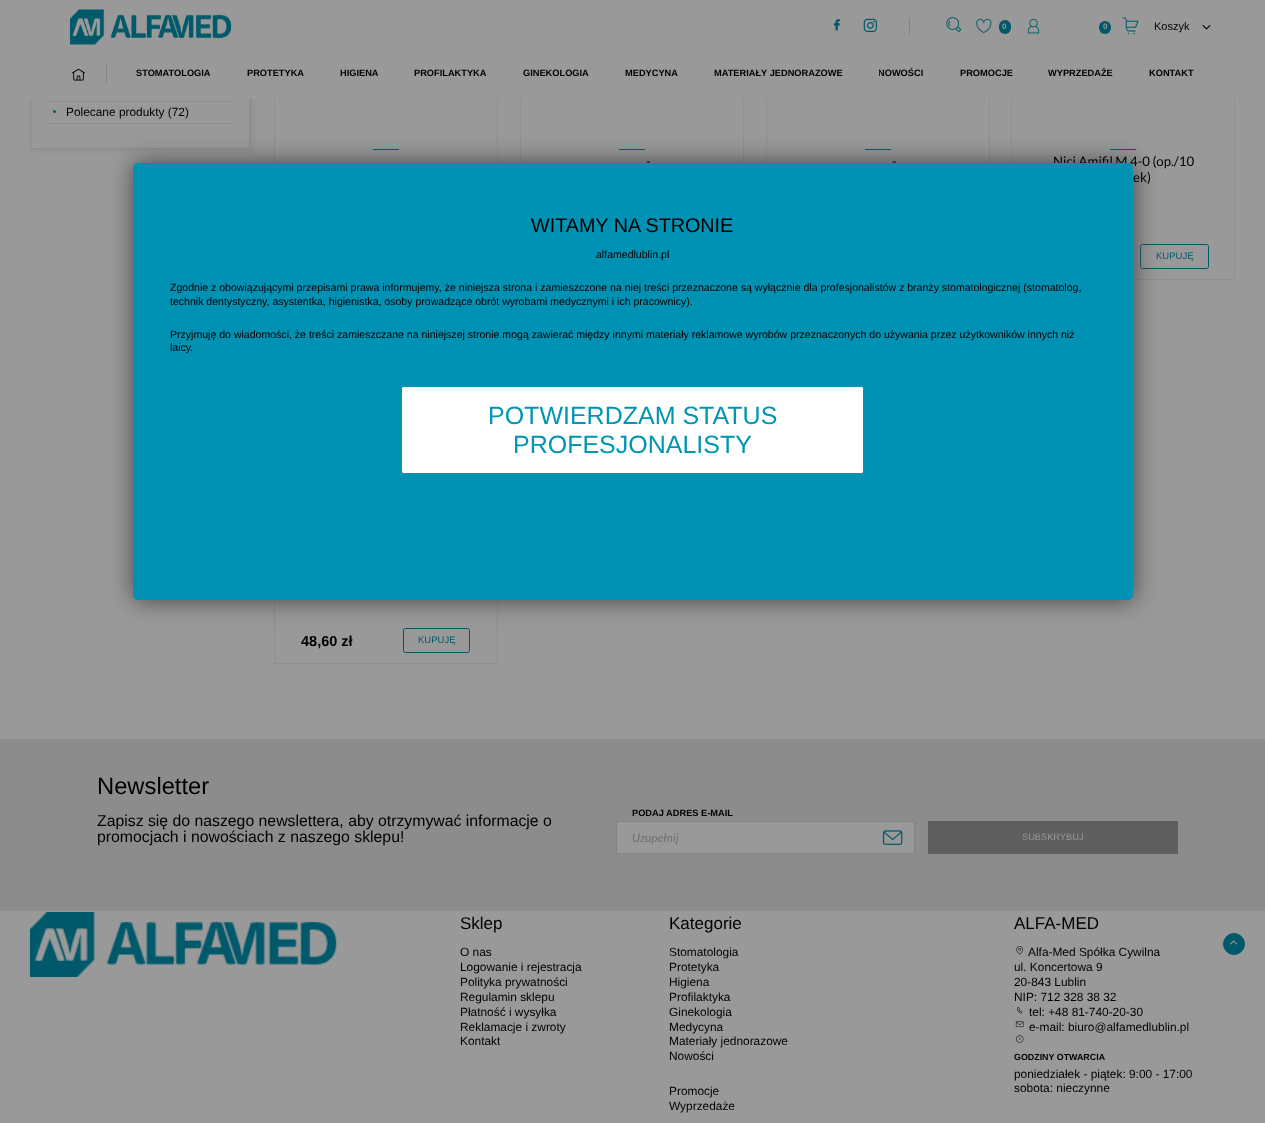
<!DOCTYPE html>
<meta charset="utf-8">
<style>body { margin: 0 } canvas { display: block }</style>
<canvas id="canvas" width="1265" height="1123"></canvas>
<img id="img1" src="img_01.png" hidden>
<img id="img2" src="img_02.png" hidden>
<img id="img3" src="img_03.png" hidden>
<img id="img4" src="img_04.png" hidden>
<img id="img5" src="img_05.png" hidden>
<img id="img6" src="img_06.png" hidden>
<img id="img7" src="img_07.png" hidden>
<img id="img8" src="img_08.png" hidden>
<img id="img9" src="img_09.png" hidden>
<img id="img10" src="img_10.png" hidden>
<img id="img11" src="img_11.png" hidden>
<img id="img12" src="img_12.png" hidden>
<img id="img13" src="img_13.png" hidden>
<img id="img14" src="img_14.png" hidden>
<img id="img15" src="img_15.png" hidden>
<img id="img16" src="img_16.png" hidden>
<script>
window.onload = function () {
	const canvas = document.getElementById("canvas");
	const ctx = canvas.getContext("2d");
	ctx.miterLimit = 4;
	ctx.fontKerning = "normal";
	function txt(s, x, y) {
		ctx.fillText(s, x, y);
	}
	function fill(x, y, w, h) {
		ctx.fillRect(x, y, w, h);
	}
	function round(x, y, w, h, r) {
		ctx.beginPath();
		ctx.roundRect(x, y, w, h, r);
		ctx.fill();
	}
	function img(id, x, y, w, h) {
		ctx.drawImage(document.getElementById(id), x, y, w, h);
	}

	ctx.fillStyle = "#999999";
	fill(0, 0, 1265, 1123);
	ctx.fillStyle = "#8F8F8F";
	ctx.filter = "blur(2px)";
	ctx.beginPath();
	ctx.rect(33, -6, 220, 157);
	ctx.fill();
	ctx.filter = "none";
	ctx.fillStyle = "#999999";
	fill(32, 99, 217, 49);
	ctx.strokeStyle = "#8D8D8D";
	ctx.strokeRect(30.5, -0.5, 219, 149);
	ctx.strokeStyle = "#8F8F8F";
	ctx.strokeRect(274.5, -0.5, 223, 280);
	ctx.strokeRect(520.5, -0.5, 223, 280);
	ctx.strokeRect(766.5, -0.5, 223, 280);
	ctx.strokeRect(1011.5, -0.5, 223, 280);
	fill(30, 0, 1205, 99);
	img("img1", 70, 9, 162, 36);
	img("img2", 833, 19, 7, 12);
	img("img3", 863, 18, 14, 14);
	ctx.fillStyle = "#838383";
	fill(909, 18, 1, 16);
	img("img4", 946, 17, 16, 16);
	img("img5", 976, 18, 16, 15);
	ctx.fillStyle = "#00596A";
	round(999, 20, 12, 14, 6);
	img("img6", 1027, 18, 13, 16);
	round(1099, 21, 12, 13, 6);
	img("img7", 1122, 17, 17, 18);
	img("img8", 1202, 25, 9, 5);
	ctx.fillStyle = "#858585";
	fill(106, 63, 1, 20);
	img("img9", 72, 68, 13, 13);
	ctx.fillStyle = "#8D8D8D";
	fill(48, 101, 185, 1);
	ctx.fillStyle = "#00596A";
	ctx.beginPath();
	ctx.arc(54.5, 111.5, 1.5, 0, Math.PI * 2);
	ctx.fill();
	ctx.fillStyle = "#8D8D8D";
	fill(48, 123, 185, 1);
	ctx.fillStyle = "#00596A";
	fill(373, 149, 26, 1);
	fill(619, 149, 26, 1);
	fill(865, 149, 26, 1);
	fill(1110, 149, 26, 1);
	ctx.beginPath();
	ctx.roundRect(1140.5, 244.5, 68, 24, 2);
	ctx.strokeStyle = "#00596A";
	ctx.stroke();
	ctx.strokeStyle = "#8F8F8F";
	ctx.strokeRect(274.5, 303.5, 223, 360);
	ctx.beginPath();
	ctx.roundRect(403.5, 628.5, 66, 24, 2);
	ctx.strokeStyle = "#00596A";
	ctx.stroke();
	ctx.fillStyle = "#8C8C8C";
	fill(0, 739, 1265, 172);
	ctx.fillStyle = "#999999";
	ctx.beginPath();
	ctx.rect(616.5, 821.5, 298, 32);
	ctx.fill();
	ctx.strokeStyle = "#838383";
	ctx.stroke();
	img("img10", 882, 830, 21, 15);
	ctx.fillStyle = "#5F5F5F";
	fill(928, 821, 250, 33);
	img("img11", 30, 912, 307, 65);
	img("img12", 1016, 946, 7, 9);
	img("img13", 1017, 1007, 6, 7);
	img("img14", 1015, 1021, 9, 7);
	img("img15", 1016, 1035, 8, 8);
	ctx.fillStyle = "#444444";
	ctx.filter = "blur(12.5px)";
	ctx.beginPath();
	ctx.roundRect(134, 163, 1000, 437, 5);
	ctx.fill();
	ctx.filter = "none";
	ctx.fillStyle = "#00596A";
	ctx.beginPath();
	ctx.arc(1234, 944, 10.5, 0, Math.PI * 2);
	ctx.fill();
	ctx.strokeStyle = "#00596A";
	ctx.stroke();
	img("img16", 1230, 940, 8, 5);
	ctx.font = "bold 8px Liberation Sans";
	ctx.fillStyle = "#999999";
	txt("0", 1002, 29);
	txt("0", 1103, 29);
	ctx.font = "11px Liberation Sans";
	ctx.fillStyle = "#000000";
	txt("Koszyk", 1154, 30);
	ctx.font = "bold 9.25px Liberation Sans";
	txt("STOMATOLOGIA", 136, 76);
	txt("PROTETYKA", 247, 76);
	txt("HIGIENA", 340, 76);
	txt("PROFILAKTYKA", 414, 76);
	txt("GINEKOLOGIA", 523, 76);
	txt("MEDYCYNA", 625, 76);
	txt("MATERIAŁY JEDNORAZOWE", 714, 76);
	ctx.save();
	ctx.beginPath();
	ctx.rect(879, 65, 45, 19);
	ctx.clip();
	txt("NOWOŚCI", 878, 76);
	ctx.restore();
	txt("PROMOCJE", 960, 76);
	txt("WYPRZEDAŻE", 1048, 76);
	txt("KONTAKT", 1149, 76);
	ctx.font = "11.9px Liberation Sans";
	txt("Polecane produkty (72)", 66, 116);
	ctx.font = "13.25px Lato";
	txt("-", 646, 166);
	txt("-", 892, 166);
	txt("Nici Amifil M 4-0 (op./10", 1053, 166);
	txt("ek)", 1133, 182);
	ctx.font = "9.5px Liberation Sans";
	ctx.fillStyle = "#00596A";
	txt("KUPUJĘ", 1156, 259);
	ctx.font = "bold 14.5px Liberation Sans";
	ctx.fillStyle = "#000000";
	txt("48,60 zł", 301, 646);
	ctx.font = "9.5px Liberation Sans";
	ctx.fillStyle = "#00596A";
	txt("KUPUJĘ", 418, 643);
	ctx.font = "23.75px Liberation Sans";
	ctx.fillStyle = "#000000";
	txt("Newsletter", 97, 794);
	ctx.font = "15.8px Liberation Sans";
	txt("Zapisz się do naszego newslettera, aby otrzymywać informacje o", 97, 826);
	txt("promocjach i nowościach z naszego sklepu!", 97, 842);
	ctx.font = "bold 9.25px Liberation Sans";
	txt("PODAJ ADRES E-MAIL", 632, 816);
	ctx.font = "italic 11.9px Lato";
	ctx.fillStyle = "#6E6E6E";
	txt("Uzupełnij", 632, 842);
	ctx.font = "9.25px Liberation Sans";
	ctx.fillStyle = "#999999";
	txt("SUBSKRYBUJ", 1022, 840);
	ctx.font = "17px Liberation Sans";
	ctx.fillStyle = "#000000";
	txt("Sklep", 460, 929);
	ctx.font = "11.9px Liberation Sans";
	txt("O nas", 460, 956);
	txt("Logowanie i rejestracja", 460, 971);
	txt("Polityka prywatności", 460, 986);
	txt("Regulamin sklepu", 460, 1001);
	txt("Płatność i wysyłka", 460, 1016);
	txt("Reklamacje i zwroty", 460, 1031);
	txt("Kontakt", 460, 1045);
	ctx.font = "17px Liberation Sans";
	txt("Kategorie", 669, 929);
	ctx.font = "11.9px Liberation Sans";
	txt("Stomatologia", 669, 956);
	txt("Protetyka", 669, 971);
	txt("Higiena", 669, 986);
	txt("Profilaktyka", 669, 1001);
	txt("Ginekologia", 669, 1016);
	txt("Medycyna", 669, 1031);
	txt("Materiały jednorazowe", 669, 1045);
	txt("Nowości", 669, 1060);
	txt("Promocje", 669, 1095);
	txt("Wyprzedaże", 669, 1110);
	ctx.font = "17px Liberation Sans";
	txt("ALFA-MED", 1014, 929);
	ctx.font = "11.9px Liberation Sans";
	txt("Alfa-Med Spółka Cywilna", 1028, 956);
	txt("ul. Koncertowa 9", 1014, 971);
	txt("20-843 Lublin", 1014, 986);
	txt("NIP: 712 328 38 32", 1014, 1001);
	txt("tel: +48 81-740-20-30", 1029, 1016);
	txt("e-mail: biuro@alfamedlublin.pl", 1029, 1031);
	ctx.font = "bold 8.9px Liberation Sans";
	txt("GODZINY OTWARCIA", 1014, 1060);
	ctx.font = "11.9px Liberation Sans";
	txt("poniedziałek - piątek: 9:00 - 17:00", 1014, 1078);
	txt("sobota: nieczynne", 1014, 1092);
	ctx.fillStyle = "#0091B3";
	ctx.beginPath();
	ctx.roundRect(136, 166, 994, 431, 2);
	ctx.fill();
	ctx.strokeStyle = "#0091B3";
	ctx.lineWidth = 6;
	ctx.stroke();
	ctx.font = "19.75px Liberation Sans";
	ctx.fillStyle = "#000000";
	txt("WITAMY NA STRONIE", 531, 232);
	ctx.font = "10.55px Liberation Sans";
	txt("alfamedlublin.pl", 596, 258);
	txt("Zgodnie z obowiązującymi przepisami prawa informujemy, że niniejsza strona i zamieszczone na niej treści przeznaczone są wyłącznie dla profesjonalistów z branży stomatologicznej (stomatolog,", 170, 291);
	txt("technik dentystyczny, asystentka, higienistka, osoby prowadzące obrót wyrobami medycznymi i ich pracownicy).", 170, 305);
	txt("Przyjmuję do wiadomości, że treści zamieszczane na niniejszej stronie mogą zawierać między innymi materiały reklamowe wyrobów przeznaczonych do używania przez użytkowników innych niż", 170, 338);
	txt("laicy.", 170, 351);
	ctx.fillStyle = "#FFFFFF";
	ctx.beginPath();
	ctx.roundRect(401.5, 386.5, 462, 87, 2);
	ctx.fill();
	ctx.strokeStyle = "#0095B1";
	ctx.lineWidth = 1;
	ctx.stroke();
	ctx.font = "25px Liberation Sans";
	ctx.fillStyle = "#0095B1";
	txt("POTWIERDZAM STATUS", 488, 424);
	txt("PROFESJONALISTY", 513, 453);
};
</script>
